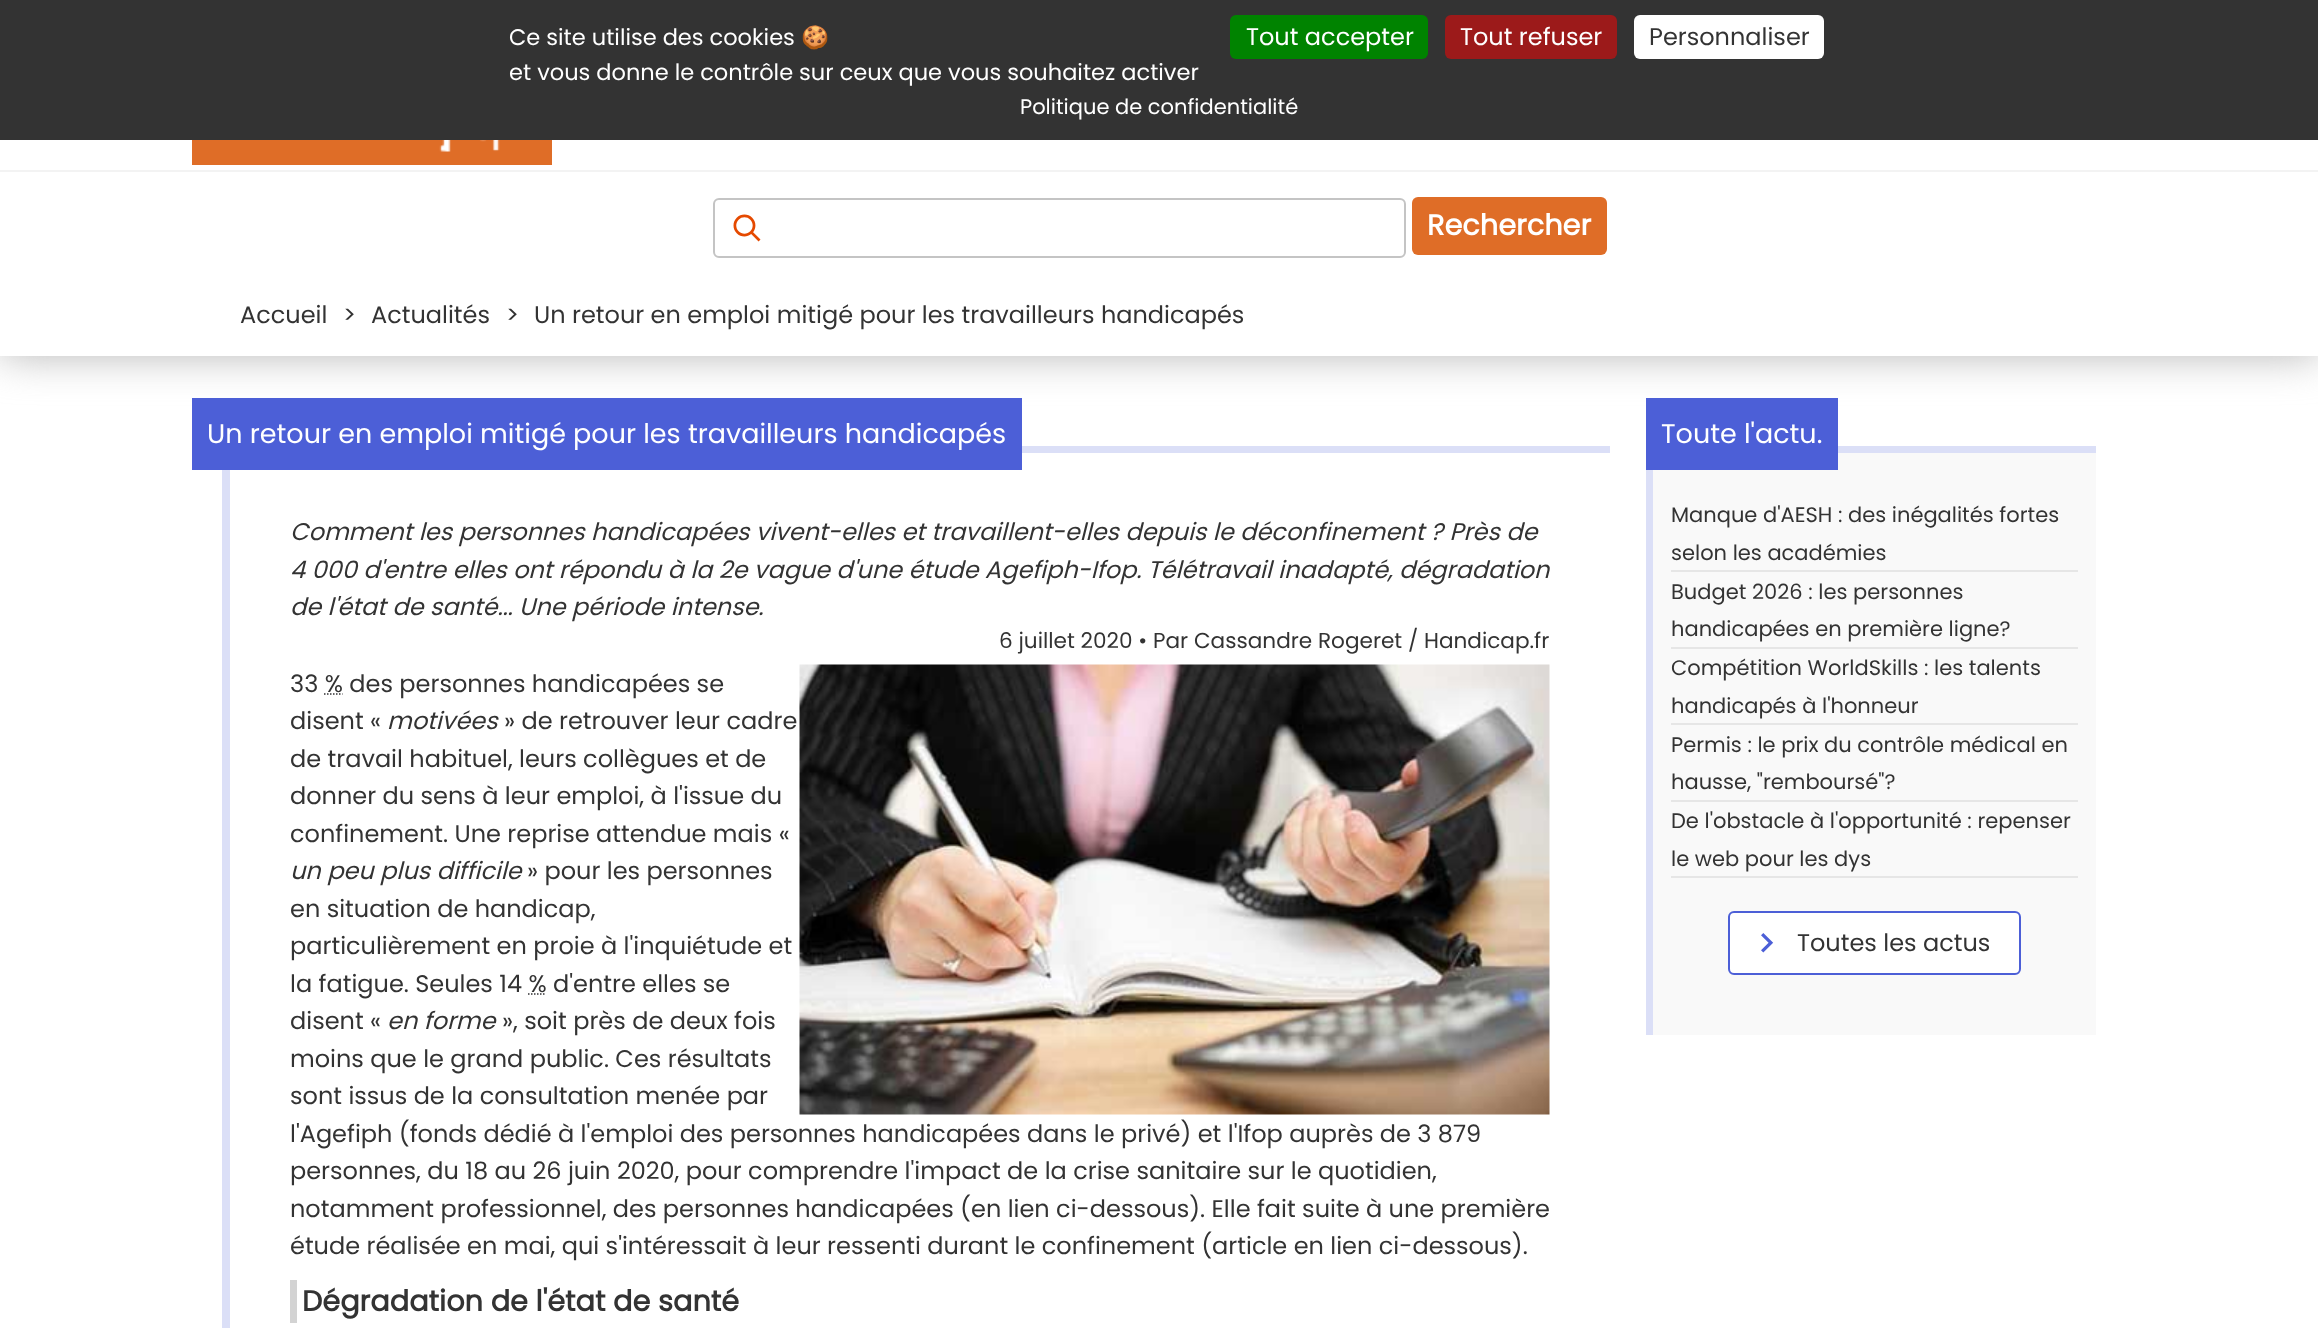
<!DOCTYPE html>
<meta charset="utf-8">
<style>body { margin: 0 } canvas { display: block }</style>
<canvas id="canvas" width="2318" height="1328"></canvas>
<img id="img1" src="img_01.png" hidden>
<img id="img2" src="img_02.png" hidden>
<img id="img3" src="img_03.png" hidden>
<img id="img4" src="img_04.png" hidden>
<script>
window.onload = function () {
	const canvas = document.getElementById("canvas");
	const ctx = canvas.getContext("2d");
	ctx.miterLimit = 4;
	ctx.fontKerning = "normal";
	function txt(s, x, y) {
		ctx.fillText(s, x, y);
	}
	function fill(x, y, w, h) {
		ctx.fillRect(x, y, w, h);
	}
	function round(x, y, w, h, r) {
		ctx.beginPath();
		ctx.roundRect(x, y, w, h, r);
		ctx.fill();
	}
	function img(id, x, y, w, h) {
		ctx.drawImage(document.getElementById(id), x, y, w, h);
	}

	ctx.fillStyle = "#FFFFFF";
	fill(0, 0, 2318, 1328);
	ctx.fillStyle = "#B7B7B7";
	ctx.filter = "blur(21px)";
	ctx.beginPath();
	ctx.rect(0, 12, 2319, 344);
	ctx.fill();
	ctx.filter = "none";
	ctx.fillStyle = "#333333";
	fill(0, 0, 2318, 140);
	ctx.fillStyle = "#008300";
	round(1230, 15, 198, 44, 6);
	ctx.fillStyle = "#9C1A1A";
	round(1445, 15, 172, 44, 6);
	ctx.fillStyle = "#FFFFFF";
	round(1634, 15, 190, 44, 6);
	fill(0, 140, 2318, 216);
	ctx.fillStyle = "#F3F3F3";
	fill(0, 170, 2318, 2);
	img("img1", 192, 140, 360, 25);
	ctx.beginPath();
	ctx.roundRect(714, 199, 691, 58, 5);
	ctx.strokeStyle = "#C4C4C4";
	ctx.lineWidth = 2;
	ctx.stroke();
	ctx.fillStyle = "#DF6D27";
	round(1412, 197, 195, 58, 6);
	img("img2", 733, 214, 28, 28);
	ctx.fillStyle = "#DBDFF7";
	fill(1022, 446, 588, 7);
	fill(222, 470, 8, 858);
	ctx.fillStyle = "#4C5FD7";
	fill(192, 398, 830, 72);
	img("img3", 799, 664, 751, 451);
	ctx.fillStyle = "#D3D3D3";
	fill(290, 1280, 7, 43);
	ctx.fillStyle = "#F9F9F9";
	fill(1653, 453, 443, 582);
	ctx.fillStyle = "#DBDFF7";
	fill(1838, 446, 258, 7);
	fill(1646, 470, 7, 565);
	ctx.fillStyle = "#4C5FD7";
	fill(1646, 398, 192, 72);
	ctx.fillStyle = "#E6E6E6";
	fill(1671, 570, 407, 2);
	fill(1671, 647, 407, 2);
	fill(1671, 723, 407, 2);
	fill(1671, 800, 407, 2);
	fill(1671, 876, 407, 2);
	ctx.fillStyle = "#FFFFFF";
	ctx.beginPath();
	ctx.roundRect(1729, 912, 291, 62, 5);
	ctx.fill();
	ctx.strokeStyle = "#4C5FD7";
	ctx.stroke();
	img("img4", 1761, 933, 13, 20);
	ctx.font = "22.5px Poppins";
	txt("Ce site utilise des cookies", 509, 45);
	ctx.font = "22.5px Noto Color Emoji";
	txt("🍪", 801, 45);
	ctx.font = "22.5px Poppins";
	txt("et vous donne le contrôle sur ceux que vous souhaitez activer", 509, 80);
	ctx.font = "24px Poppins";
	txt("Tout accepter", 1246, 45);
	txt("Tout refuser", 1460, 45);
	ctx.fillStyle = "#333333";
	txt("Personnaliser", 1649, 45);
	ctx.font = "21px Poppins";
	ctx.fillStyle = "#FFFFFF";
	txt("Politique de confidentialité", 1020, 114);
	ctx.font = "bold 28.75px Poppins";
	txt("Rechercher", 1427, 235);
	ctx.font = "24px Poppins";
	ctx.fillStyle = "#333333";
	txt("Accueil", 240, 323);
	txt(">", 343, 323);
	txt("Actualités", 371, 323);
	txt(">", 506, 323);
	txt("Un retour en emploi mitigé pour les travailleurs handicapés", 534, 323);
	ctx.font = "27px Poppins";
	ctx.fillStyle = "#FFFFFF";
	txt("Un retour en emploi mitigé pour les travailleurs handicapés", 207, 443);
	ctx.font = "italic 24px Poppins";
	ctx.fillStyle = "#333333";
	txt("Comment les personnes handicapées vivent-elles et travaillent-elles depuis le déconfinement ? Près de", 290, 540);
	txt("4 000 d'entre elles ont répondu à la 2e vague d'une étude Agefiph-Ifop. Télétravail inadapté, dégradation", 290, 578);
	txt("de l'état de santé... Une période intense.", 290, 615);
	ctx.font = "21.6px Poppins";
	txt("6 juillet 2020 • Par Cassandre Rogeret / Handicap.fr", 999, 648);
	ctx.font = "24px Poppins";
	txt("33 % des personnes handicapées se", 290, 692);
	ctx.beginPath();
	ctx.moveTo(324, 694);
	ctx.lineTo(342.5, 694);
	ctx.strokeStyle = "#303133";
	ctx.lineWidth = 1.5;
	ctx.setLineDash([1.5, 1.5]);
	ctx.stroke();
	txt("disent «", 290, 729);
	ctx.font = "italic 24px Poppins";
	txt("motivées", 387, 729);
	ctx.font = "24px Poppins";
	txt("» de retrouver leur cadre", 504, 729);
	txt("de travail habituel, leurs collègues et de", 290, 767);
	txt("donner du sens à leur emploi, à l'issue du", 290, 804);
	txt("confinement. Une reprise attendue mais «", 290, 842);
	ctx.font = "italic 24px Poppins";
	txt("un peu plus difficile", 290, 879);
	ctx.font = "24px Poppins";
	txt("» pour les personnes", 527, 879);
	txt("en situation de handicap,", 290, 917);
	txt("particulièrement en proie à l'inquiétude et", 290, 954);
	txt("la fatigue. Seules 14 % d'entre elles se", 290, 992);
	ctx.beginPath();
	ctx.moveTo(528, 994);
	ctx.lineTo(546, 994);
	ctx.stroke();
	txt("disent «", 290, 1029);
	ctx.font = "italic 24px Poppins";
	txt("en forme", 387, 1029);
	ctx.font = "24px Poppins";
	txt("», soit près de deux fois", 502, 1029);
	txt("moins que le grand public. Ces résultats", 290, 1067);
	txt("sont issus de la consultation menée par", 290, 1104);
	txt("l'Agefiph (fonds dédié à l'emploi des personnes handicapées dans le privé) et l'Ifop auprès de 3 879", 290, 1142);
	txt("personnes, du 18 au 26 juin 2020, pour comprendre l'impact de la crise sanitaire sur le quotidien,", 290, 1179);
	txt("notamment professionnel, des personnes handicapées (en lien ci-dessous). Elle fait suite à une première", 290, 1217);
	txt("étude réalisée en mai, qui s'intéressait à leur ressenti durant le confinement (article en lien ci-dessous).", 290, 1254);
	ctx.font = "bold 28.75px Poppins";
	txt("Dégradation de l'état de santé", 302, 1311);
	ctx.font = "27px Poppins";
	ctx.fillStyle = "#FFFFFF";
	txt("Toute l'actu.", 1661, 443);
	ctx.font = "21px Poppins";
	ctx.fillStyle = "#333333";
	txt("Manque d'AESH : des inégalités fortes", 1671, 522);
	txt("selon les académies", 1671, 560);
	txt("Budget 2026 : les personnes", 1671, 599);
	txt("handicapées en première ligne?", 1671, 636);
	txt("Compétition WorldSkills : les talents", 1671, 675);
	txt("handicapés à l'honneur", 1671, 713);
	txt("Permis : le prix du contrôle médical en", 1671, 752);
	txt("hausse, \"remboursé\"?", 1671, 789);
	txt("De l'obstacle à l'opportunité : repenser", 1671, 828);
	txt("le web pour les dys", 1671, 866);
	ctx.font = "24px Poppins";
	txt("Toutes les actus", 1797, 951);
};
</script>
